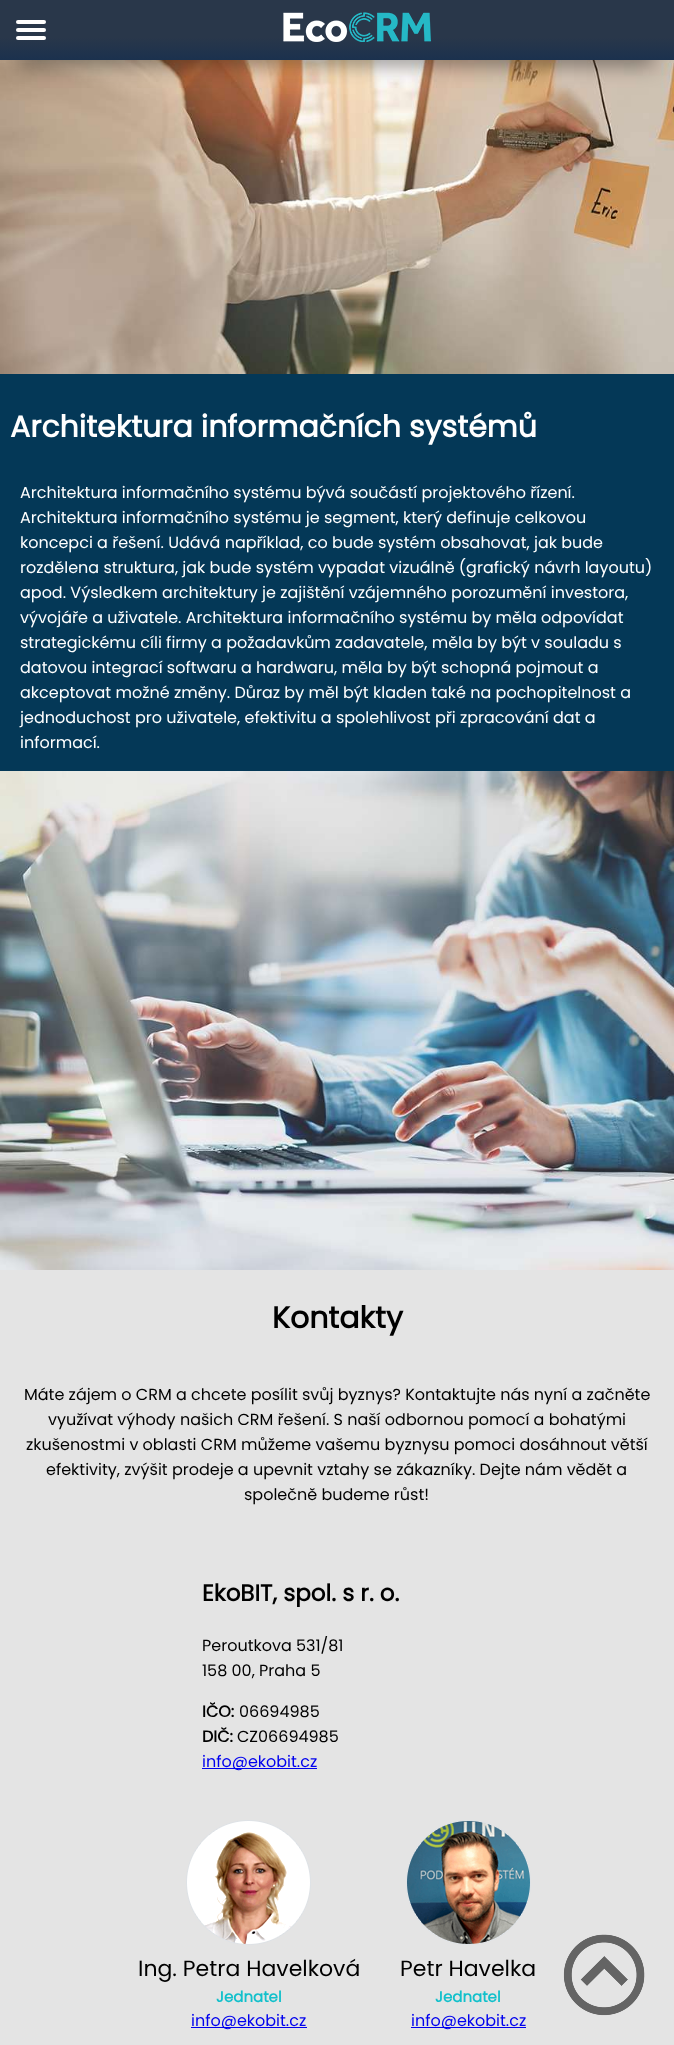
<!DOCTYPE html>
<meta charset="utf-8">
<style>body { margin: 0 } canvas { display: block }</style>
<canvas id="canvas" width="674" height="2045"></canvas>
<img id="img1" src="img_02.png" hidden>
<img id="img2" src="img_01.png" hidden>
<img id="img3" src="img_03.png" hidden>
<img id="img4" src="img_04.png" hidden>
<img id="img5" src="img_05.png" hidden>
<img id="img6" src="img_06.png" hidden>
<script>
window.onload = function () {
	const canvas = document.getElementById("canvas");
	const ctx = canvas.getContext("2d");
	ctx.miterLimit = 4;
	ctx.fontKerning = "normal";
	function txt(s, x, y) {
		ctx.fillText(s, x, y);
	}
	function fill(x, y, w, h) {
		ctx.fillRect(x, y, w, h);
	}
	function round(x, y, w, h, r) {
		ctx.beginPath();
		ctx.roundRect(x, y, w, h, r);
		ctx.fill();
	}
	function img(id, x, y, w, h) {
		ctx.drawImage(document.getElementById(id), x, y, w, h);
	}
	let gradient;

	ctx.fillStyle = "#E4E4E4";
	fill(0, 0, 674, 2045);
	img("img1", 0, 60, 674, 314);
	ctx.fillStyle = "rgba(0, 0, 0, 0.45)";
	ctx.filter = "blur(10px)";
	ctx.beginPath();
	ctx.rect(20, 45, 634, 20);
	ctx.fill();
	ctx.filter = "none";
	gradient = ctx.createLinearGradient(337, 60, 337, 0);
	gradient.addColorStop(0, "#1B314E");
	gradient.addColorStop(0.38, "#29374A");
	ctx.fillStyle = gradient;
	fill(0, 0, 674, 60);
	ctx.fillStyle = "#FFFFFF";
	round(16, 28, 30, 4, 2);
	round(16, 20, 30, 4, 2);
	round(16, 36, 30, 4, 2);
	img("img2", 283, 12, 148, 30);
	ctx.fillStyle = "#043857";
	fill(0, 374, 674, 397);
	img("img3", 0, 771, 674, 499);
	ctx.fillStyle = "#0000EE";
	fill(202, 1768, 115, 1);
	img("img4", 186, 1820, 125, 125);
	fill(191, 2027, 116, 1);
	img("img5", 406, 1820, 125, 125);
	fill(411, 2027, 115, 1);
	img("img6", 563, 1934, 82, 82);
	ctx.font = "bold 30px Poppins";
	ctx.fillStyle = "#FFFFFF";
	txt("Architektura informačních systémů", 10, 437);
	ctx.font = "16px Poppins";
	txt("Architektura informačního systému bývá součástí projektového řízení.", 20, 498);
	txt("Architektura informačního systému je segment, který definuje celkovou", 20, 523);
	txt("koncepci a řešení. Udává například, co bude systém obsahovat, jak bude", 20, 548);
	txt("rozdělena struktura, jak bude systém vypadat vizuálně (grafický návrh layoutu)", 20, 573);
	txt("apod. Výsledkem architektury je zajištění vzájemného porozumění investora,", 20, 598);
	txt("vývojáře a uživatele. Architektura informačního systému by měla odpovídat", 20, 623);
	txt("strategickému cíli firmy a požadavkům zadavatele, měla by být v souladu s", 20, 648);
	txt("datovou integrací softwaru a hardwaru, měla by být schopná pojmout a", 20, 673);
	txt("akceptovat možné změny. Důraz by měl být kladen také na pochopitelnost a", 20, 698);
	txt("jednoduchost pro uživatele, efektivitu a spolehlivost při zpracování dat a", 20, 723);
	txt("informací.", 20, 748);
	ctx.font = "bold 30px Poppins";
	ctx.fillStyle = "#000000";
	txt("Kontakty", 272, 1328);
	ctx.font = "16px Poppins";
	txt("Máte zájem o CRM a chcete posílit svůj byznys? Kontaktujte nás nyní a začněte", 24, 1400);
	txt("využívat výhody našich CRM řešení. S naší odbornou pomocí a bohatými", 48, 1425);
	txt("zkušenostmi v oblasti CRM můžeme vašemu byznysu pomoci dosáhnout větší", 26, 1450);
	txt("efektivity, zvýšit prodeje a upevnit vztahy se zákazníky. Dejte nám vědět a", 46, 1475);
	txt("společně budeme růst!", 244, 1500);
	ctx.font = "bold 23px Poppins";
	txt("EkoBIT, spol. s r. o.", 202, 1601);
	ctx.font = "16px Poppins";
	txt("Peroutkova 531/81", 202, 1651);
	txt("158 00, Praha 5", 202, 1676);
	ctx.font = "bold 16px Poppins";
	txt("IČO:", 202, 1717);
	ctx.font = "16px Poppins";
	txt("06694985", 239, 1717);
	ctx.font = "bold 16px Poppins";
	txt("DIČ:", 202, 1742);
	ctx.font = "16px Poppins";
	txt("CZ06694985", 237, 1742);
	ctx.fillStyle = "#0000EE";
	txt("info@ekobit.cz", 202, 1767);
	ctx.font = "22px Poppins";
	ctx.fillStyle = "#000000";
	txt("Ing. Petra Havelková", 138, 1976);
	ctx.font = "bold 15px Poppins";
	ctx.fillStyle = "#12C0CB";
	txt("Jednatel", 216, 2002);
	ctx.font = "16px Poppins";
	ctx.fillStyle = "#0000EE";
	txt("info@ekobit.cz", 191, 2026);
	ctx.font = "22px Poppins";
	ctx.fillStyle = "#000000";
	txt("Petr Havelka", 400, 1976);
	ctx.font = "bold 15px Poppins";
	ctx.fillStyle = "#12C0CB";
	txt("Jednatel", 435, 2002);
	ctx.font = "16px Poppins";
	ctx.fillStyle = "#0000EE";
	txt("info@ekobit.cz", 411, 2026);
};
</script>
